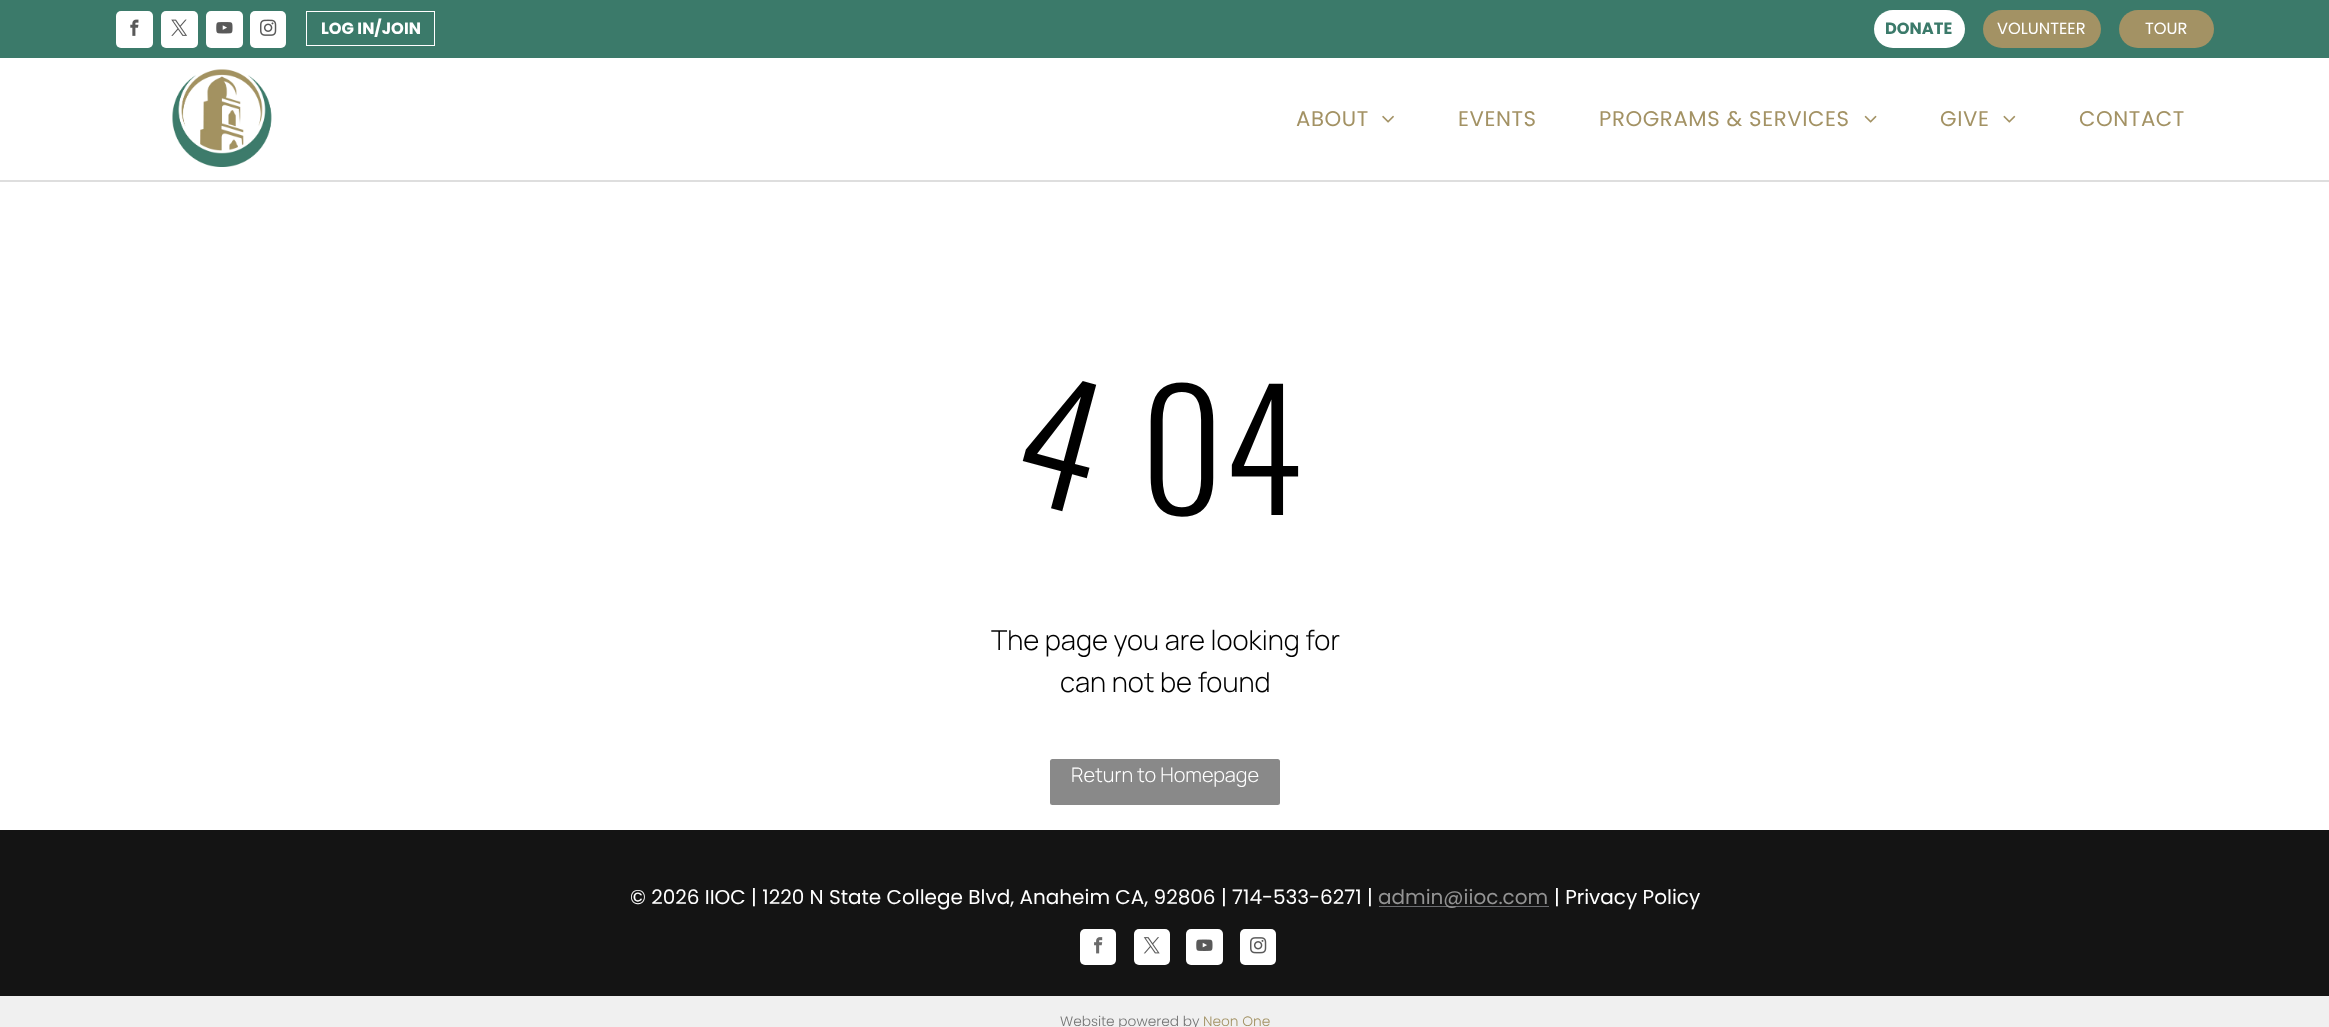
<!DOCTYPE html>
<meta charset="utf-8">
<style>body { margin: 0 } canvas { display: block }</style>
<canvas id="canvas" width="2329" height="1027"></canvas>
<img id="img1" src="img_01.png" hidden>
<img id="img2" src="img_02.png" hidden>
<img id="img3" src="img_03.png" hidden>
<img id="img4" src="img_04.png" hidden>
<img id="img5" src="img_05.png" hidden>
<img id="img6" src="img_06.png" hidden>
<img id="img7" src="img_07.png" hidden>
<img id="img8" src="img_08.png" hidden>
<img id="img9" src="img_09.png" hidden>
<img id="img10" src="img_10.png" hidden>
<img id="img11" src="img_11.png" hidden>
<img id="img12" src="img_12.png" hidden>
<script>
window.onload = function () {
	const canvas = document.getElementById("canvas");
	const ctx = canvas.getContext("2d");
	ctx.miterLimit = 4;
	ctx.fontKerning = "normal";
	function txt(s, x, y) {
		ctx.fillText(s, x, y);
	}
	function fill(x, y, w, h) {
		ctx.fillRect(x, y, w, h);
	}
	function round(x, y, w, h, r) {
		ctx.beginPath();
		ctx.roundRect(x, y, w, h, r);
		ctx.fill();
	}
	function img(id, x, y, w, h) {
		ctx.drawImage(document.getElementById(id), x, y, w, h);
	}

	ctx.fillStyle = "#FFFFFF";
	fill(0, 0, 2329, 1027);
	ctx.fillStyle = "#DEDEDE";
	fill(0, 180, 2329, 2);
	ctx.fillStyle = "#3B7A6A";
	fill(0, 0, 2329, 58);
	ctx.fillStyle = "#FFFFFF";
	round(116, 11, 37, 37, 5);
	img("img1", 130, 19, 9, 17);
	round(161, 11, 37, 37, 5);
	img("img2", 171, 19, 16, 17);
	round(206, 11, 37, 37, 5);
	img("img3", 216, 22, 17, 12);
	round(250, 11, 36, 37, 5);
	img("img4", 260, 19, 17, 17);
	ctx.strokeStyle = "#FFFFFF";
	ctx.strokeRect(306.5, 11.5, 128, 34);
	round(1874, 10, 91, 38, 19);
	ctx.fillStyle = "#A39264";
	round(1983, 10, 118, 38, 19);
	round(2119, 10, 95, 38, 19);
	img("img5", 172, 69, 100, 98);
	img("img6", 1382, 115, 12, 8);
	img("img7", 1864, 115, 13, 8);
	img("img8", 2003, 115, 13, 8);
	ctx.fillStyle = "#898989";
	round(1050, 759, 230, 46, 2.5);
	ctx.fillStyle = "#141414";
	fill(0, 830, 2329, 166);
	ctx.fillStyle = "#6B6C70";
	fill(1379, 906, 170, 1);
	ctx.fillStyle = "#FFFFFF";
	round(1080, 929, 36, 36, 5);
	img("img9", 1094, 937, 9, 17);
	round(1134, 929, 36, 36, 5);
	img("img10", 1143, 937, 17, 17);
	round(1186, 929, 37, 36, 5);
	img("img11", 1196, 939, 17, 12);
	round(1240, 929, 36, 36, 5);
	img("img12", 1250, 937, 17, 17);
	ctx.fillStyle = "#F0F0F0";
	fill(0, 996, 2329, 31);
	ctx.font = "bold 16.25px Poppins";
	ctx.fillStyle = "#FFFFFF";
	txt("LOG IN/JOIN", 321, 34);
	ctx.fillStyle = "#3B7A6A";
	txt("DONATE", 1885, 34);
	ctx.font = "16.25px Poppins";
	ctx.fillStyle = "#FFFFFF";
	txt("VOLUNTEER", 1997, 34);
	txt("TOUR", 2145, 34);
	ctx.letterSpacing = "0.6px";
	ctx.font = "21.25px Poppins";
	ctx.fillStyle = "#A39264";
	txt("ABOUT", 1296, 126);
	txt("EVENTS", 1458, 126);
	txt("PROGRAMS & SERVICES", 1599, 126);
	txt("GIVE", 1940, 126);
	txt("CONTACT", 2079, 126);
	ctx.letterSpacing = "0px";
	ctx.font = "300 162px Oswald";
	ctx.fillStyle = "#000000";
	ctx.save();
	ctx.translate(1005, 496);
	ctx.rotate(15 * Math.PI / 180);
	ctx.fillText("4", 0, 0);
	ctx.restore();
	txt("04", 1140, 515);
	ctx.font = "300 27.5px Manrope";
	txt("The page you are looking for", 991, 650);
	txt("can not be found", 1060, 692);
	ctx.font = "300 20px Manrope";
	ctx.fillStyle = "#FFFFFF";
	txt("Return to Homepage", 1071, 782);
	ctx.font = "20px Poppins";
	txt("© 2026 IIOC | 1220 N State College Blvd, Anaheim CA, 92806 | 714-533-6271 |", 630, 904);
	ctx.fillStyle = "#939393";
	txt("admin@iioc.com", 1378, 904);
	ctx.fillStyle = "#FFFFFF";
	txt("| Privacy Policy", 1554, 904);
	ctx.font = "300 13.75px Poppins";
	ctx.fillStyle = "#747474";
	txt("Website powered by", 1060, 1026);
	ctx.fillStyle = "#A39264";
	txt("Neon One", 1203, 1026);
};
</script>
